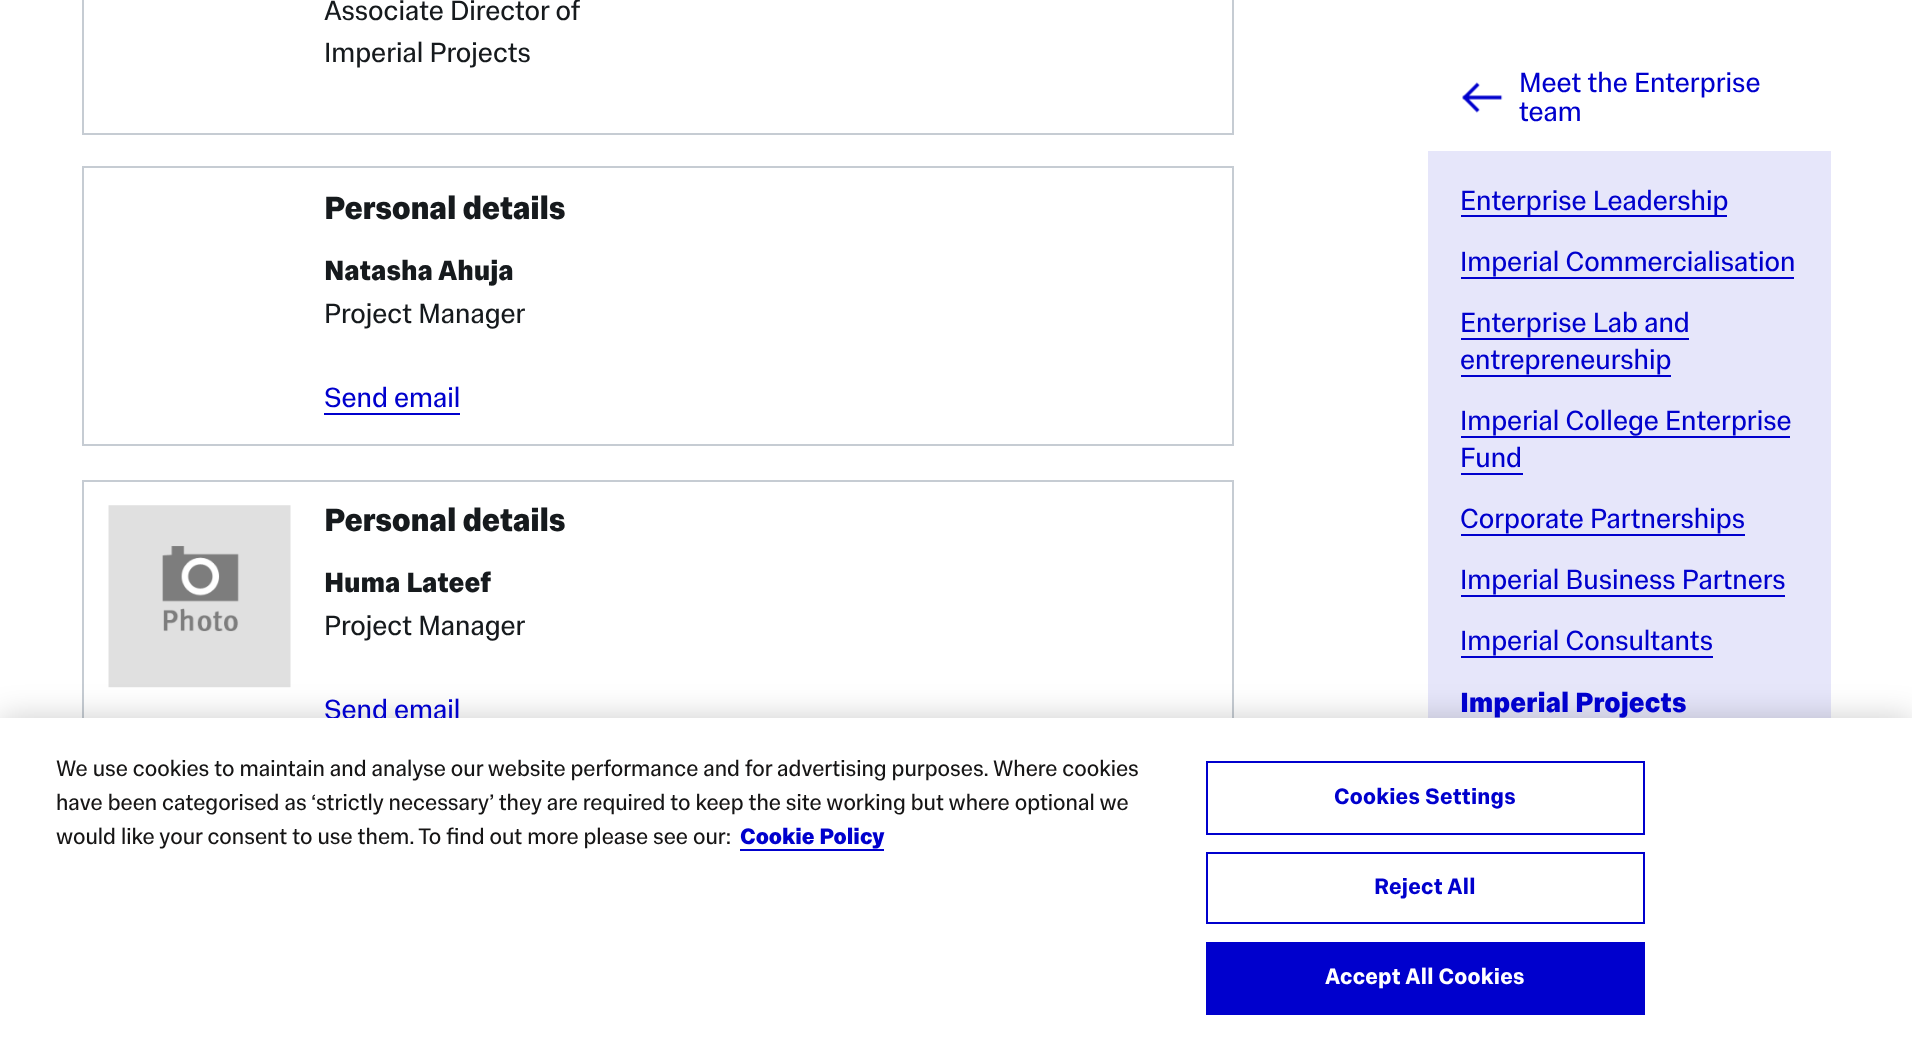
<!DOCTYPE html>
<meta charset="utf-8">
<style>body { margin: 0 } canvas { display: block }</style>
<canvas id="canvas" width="1912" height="1049"></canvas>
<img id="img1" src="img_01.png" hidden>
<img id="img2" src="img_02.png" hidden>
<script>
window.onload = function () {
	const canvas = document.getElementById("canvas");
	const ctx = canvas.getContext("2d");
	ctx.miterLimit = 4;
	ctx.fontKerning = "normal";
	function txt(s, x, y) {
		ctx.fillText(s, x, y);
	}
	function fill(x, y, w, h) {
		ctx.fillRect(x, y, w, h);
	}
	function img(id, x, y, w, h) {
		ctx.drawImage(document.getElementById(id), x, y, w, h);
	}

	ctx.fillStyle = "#FFFFFF";
	fill(0, 0, 1912, 1049);
	ctx.strokeStyle = "#C6CCD3";
	ctx.lineWidth = 2;
	ctx.strokeRect(83, -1, 1150, 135);
	ctx.strokeRect(83, 167, 1150, 278);
	ctx.fillStyle = "#0000CD";
	fill(324, 413, 136, 2);
	ctx.strokeRect(83, 481, 1150, 276);
	img("img1", 108, 505, 183, 183);
	img("img2", 1462, 82, 41, 31);
	ctx.fillStyle = "#E6E6FA";
	fill(1428, 151, 403, 567);
	ctx.fillStyle = "#0000CD";
	fill(1461, 215, 266, 2);
	fill(1461, 277, 333, 2);
	fill(1461, 338, 228, 2);
	fill(1461, 375, 210, 2);
	fill(1461, 436, 329, 2);
	fill(1461, 473, 62, 2);
	fill(1461, 534, 284, 2);
	fill(1461, 595, 324, 2);
	fill(1461, 656, 252, 2);
	ctx.fillStyle = "rgba(0, 0, 0, 0.2)";
	ctx.filter = "blur(16px)";
	ctx.beginPath();
	ctx.rect(0, 718, 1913, 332);
	ctx.fill();
	ctx.filter = "none";
	ctx.font = "28.25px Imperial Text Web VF";
	ctx.fillStyle = "#161A1D";
	txt("Associate Director of", 324, 20);
	txt("Imperial Projects", 324, 62);
	ctx.letterSpacing = "-0.3px";
	ctx.font = "bold 32.75px Imperial Text Web VF";
	txt("Personal details", 324, 219);
	ctx.letterSpacing = "0px";
	ctx.font = "bold 28.25px Imperial Text Web VF";
	txt("Natasha Ahuja", 324, 280);
	ctx.font = "28.25px Imperial Text Web VF";
	txt("Project Manager", 324, 323);
	ctx.fillStyle = "#0000CD";
	txt("Send email", 324, 407);
	ctx.letterSpacing = "-0.3px";
	ctx.font = "bold 32.75px Imperial Text Web VF";
	ctx.fillStyle = "#161A1D";
	txt("Personal details", 324, 531);
	ctx.letterSpacing = "0px";
	ctx.font = "bold 28.25px Imperial Text Web VF";
	txt("Huma Lateef", 324, 592);
	ctx.font = "28.25px Imperial Text Web VF";
	txt("Project Manager", 324, 635);
	ctx.fillStyle = "#0000CD";
	txt("Send email", 324, 719);
	txt("Meet the Enterprise", 1519, 92);
	txt("team", 1519, 121);
	txt("Enterprise Leadership", 1460, 210);
	txt("Imperial Commercialisation", 1460, 271);
	txt("Enterprise Lab and", 1460, 332);
	txt("entrepreneurship", 1460, 369);
	txt("Imperial College Enterprise", 1460, 430);
	txt("Fund", 1460, 467);
	txt("Corporate Partnerships", 1460, 528);
	txt("Imperial Business Partners", 1460, 589);
	txt("Imperial Consultants", 1460, 650);
	ctx.font = "bold 28.25px Imperial Text Web VF";
	txt("Imperial Projects", 1460, 712);
	ctx.fillStyle = "#FFFFFF";
	fill(0, 718, 1912, 331);
	ctx.font = "22.75px Imperial Text Web VF";
	ctx.fillStyle = "#161515";
	txt("We use cookies to maintain and analyse our website performance and for advertising purposes. Where cookies", 56, 776);
	txt("have been categorised as ‘strictly necessary’ they are required to keep the site working but where optional we", 56, 810);
	txt("would like your consent to use them. To find out more please see our:", 56, 844);
	ctx.font = "bold 22.75px Imperial Text Web VF";
	ctx.fillStyle = "#0000CD";
	txt("Cookie Policy", 740, 844);
	fill(740, 849, 144, 2);
	ctx.strokeStyle = "#0000CD";
	ctx.strokeRect(1207, 762, 437, 72);
	ctx.letterSpacing = "0.25px";
	ctx.font = "600 22.75px Imperial Text Web VF";
	txt("Cookies Settings", 1334, 804);
	ctx.strokeRect(1207, 853, 437, 70);
	txt("Reject All", 1374, 894);
	fill(1206, 942, 439, 73);
	ctx.fillStyle = "#FFFFFF";
	txt("Accept All Cookies", 1325, 984);
};
</script>
